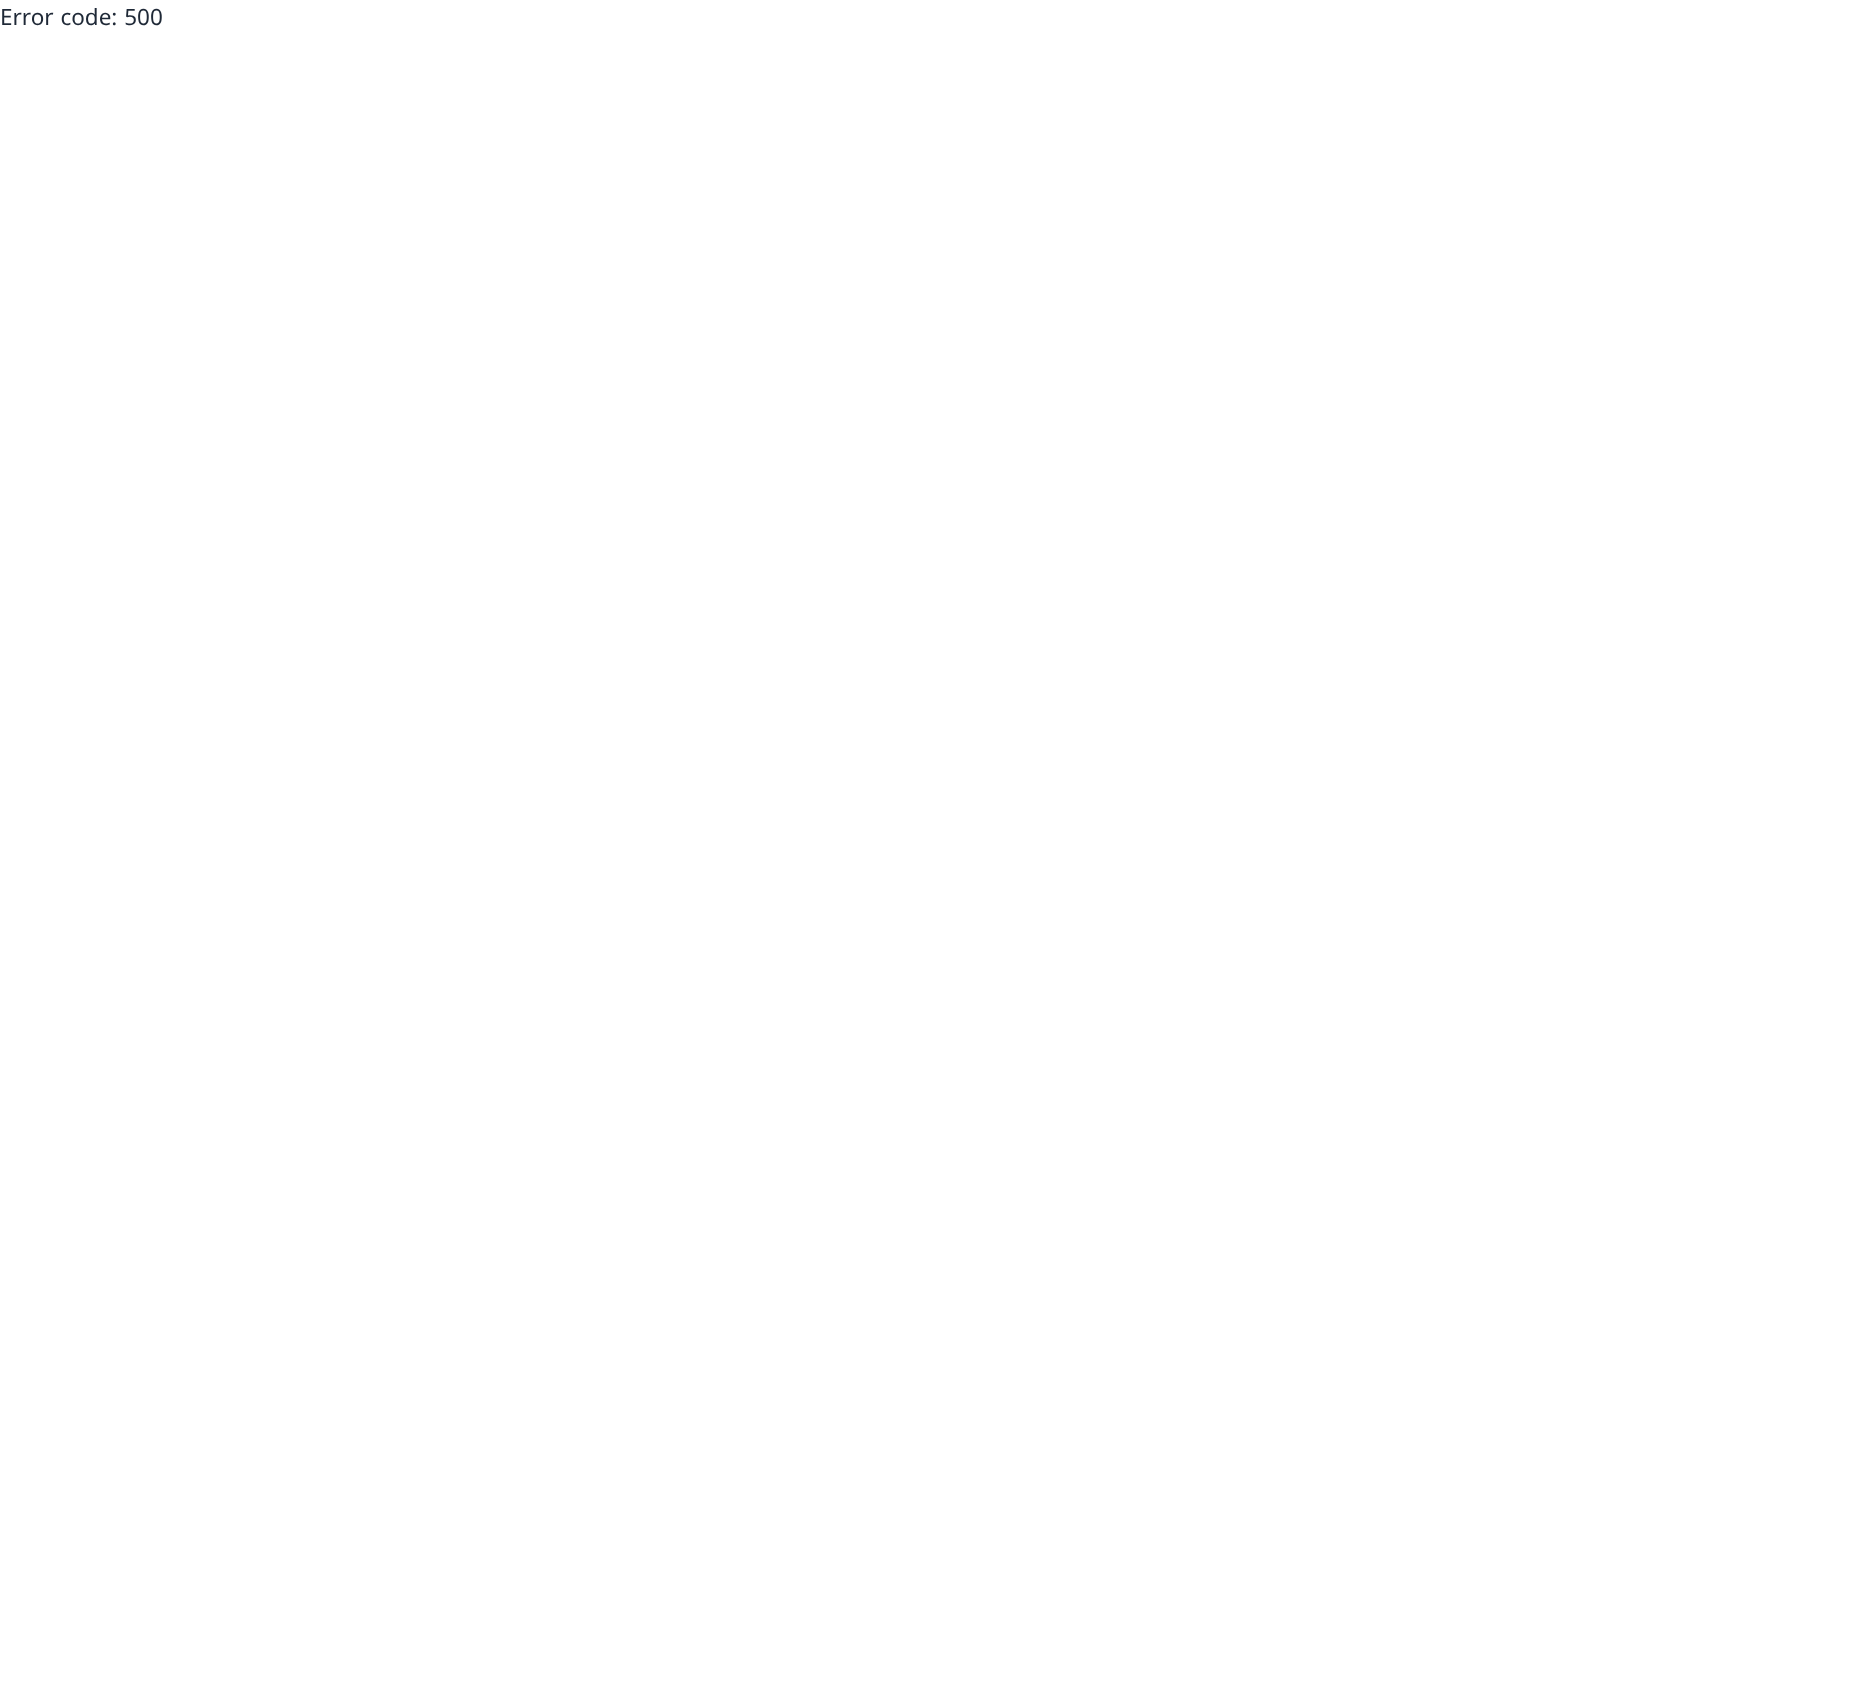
<!DOCTYPE html>
<meta charset="utf-8">
<style>body { margin: 0 } canvas { display: block }</style>
<canvas id="canvas" width="1870" height="1707"></canvas>
<script>
window.onload = function () {
	const canvas = document.getElementById("canvas");
	const ctx = canvas.getContext("2d");
	ctx.miterLimit = 4;
	ctx.fontKerning = "normal";
	function txt(s, x, y) {
		ctx.fillText(s, x, y);
	}
	function fill(x, y, w, h) {
		ctx.fillRect(x, y, w, h);
	}

	ctx.fillStyle = "#FFFFFF";
	fill(0, 0, 1870, 1707);
	ctx.wordSpacing = "1px";
	ctx.font = "22.5px Noto Sans";
	ctx.fillStyle = "#1F2937";
	txt("Error code: 500", 0, 25);
};
</script>
